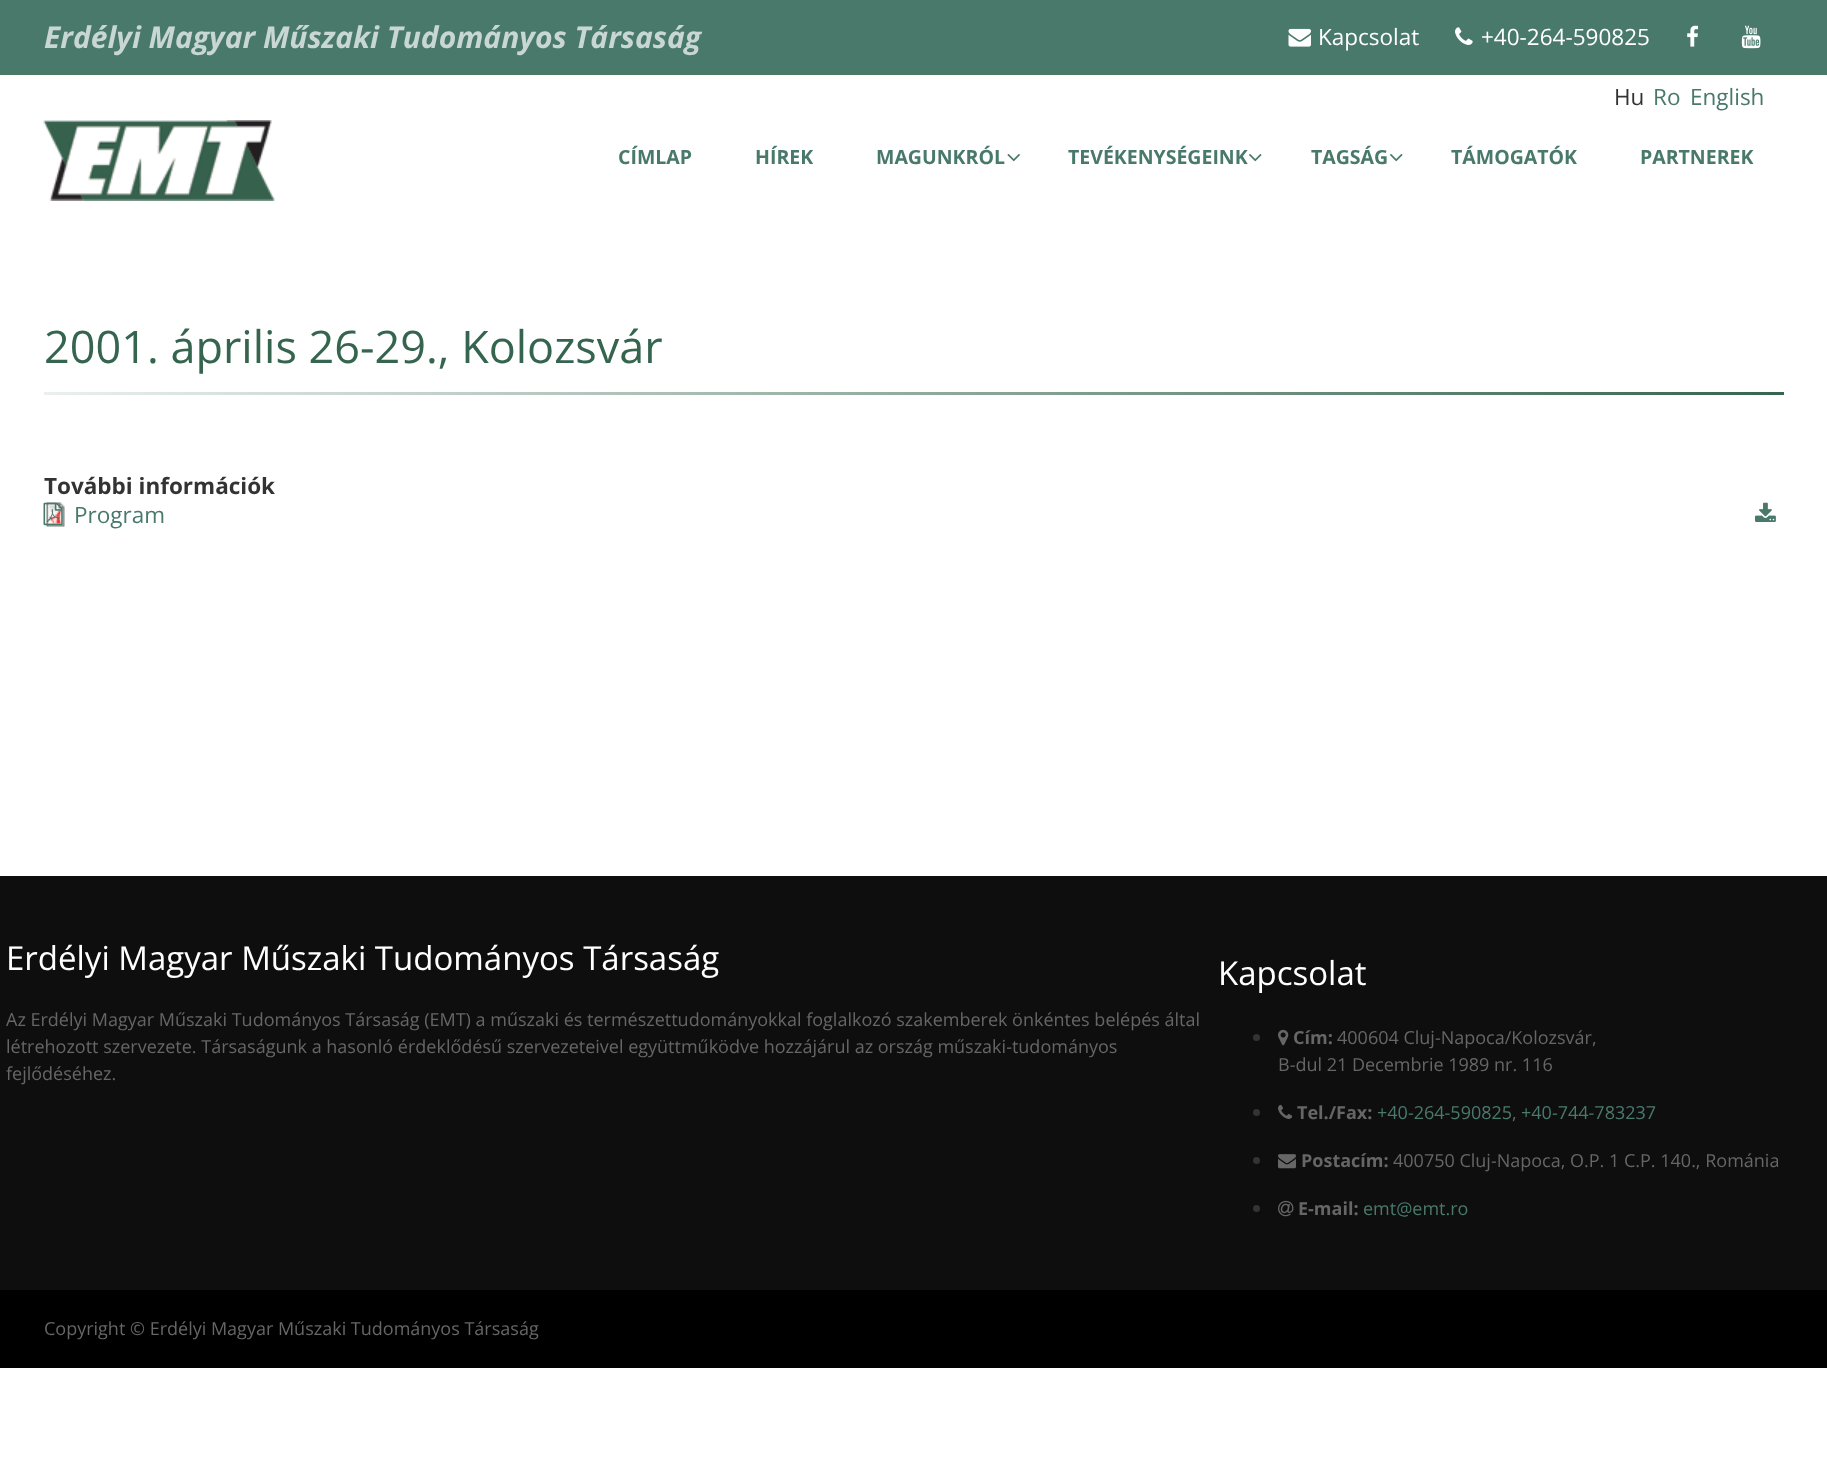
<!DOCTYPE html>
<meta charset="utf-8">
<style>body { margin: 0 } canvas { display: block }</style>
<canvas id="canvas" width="1827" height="1479"></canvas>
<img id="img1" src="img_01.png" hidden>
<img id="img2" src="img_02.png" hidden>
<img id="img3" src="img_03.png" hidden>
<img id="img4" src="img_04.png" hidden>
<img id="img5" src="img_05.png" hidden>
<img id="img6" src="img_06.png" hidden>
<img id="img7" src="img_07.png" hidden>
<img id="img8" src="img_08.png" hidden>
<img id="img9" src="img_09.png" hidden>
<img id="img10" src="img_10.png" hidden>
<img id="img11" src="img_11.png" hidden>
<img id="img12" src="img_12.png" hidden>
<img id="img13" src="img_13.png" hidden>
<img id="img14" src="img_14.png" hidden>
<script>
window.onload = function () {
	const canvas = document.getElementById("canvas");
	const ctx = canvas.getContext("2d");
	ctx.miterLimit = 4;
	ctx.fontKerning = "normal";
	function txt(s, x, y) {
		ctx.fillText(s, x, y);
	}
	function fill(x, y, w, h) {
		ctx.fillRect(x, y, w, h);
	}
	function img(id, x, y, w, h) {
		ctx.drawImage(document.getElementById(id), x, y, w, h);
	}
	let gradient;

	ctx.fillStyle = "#FFFFFF";
	fill(0, 0, 1827, 1479);
	ctx.fillStyle = "#49796B";
	fill(0, 0, 1827, 75);
	img("img1", 1288, 28, 23, 19);
	img("img2", 1455, 27, 18, 18);
	img("img3", 1687, 25, 12, 22);
	img("img4", 1741, 25, 20, 24);
	img("img5", 43, 120, 232, 81);
	img("img6", 1007, 154, 13, 8);
	img("img7", 1249, 154, 13, 8);
	img("img7", 1390, 154, 13, 8);
	gradient = ctx.createLinearGradient(44, 393, 1784, 393);
	gradient.addColorStop(0, "#EBF0ED");
	gradient.addColorStop(1, "#36654F");
	ctx.fillStyle = gradient;
	fill(44, 392, 1740, 3);
	img("img8", 46, 502, 19, 25);
	img("img9", 43, 502, 20, 24);
	img("img10", 1755, 502, 21, 20);
	ctx.fillStyle = "#0E0E0E";
	fill(0, 876, 1827, 414);
	ctx.fillStyle = "#333333";
	ctx.beginPath();
	ctx.arc(1256.5, 1037.5, 3.5, 0, Math.PI * 2);
	ctx.fill();
	img("img11", 1278, 1029, 11, 17);
	ctx.beginPath();
	ctx.arc(1256.5, 1112.5, 3.5, 0, Math.PI * 2);
	ctx.fill();
	img("img12", 1278, 1104, 15, 15);
	ctx.beginPath();
	ctx.arc(1256.5, 1160.5, 3.5, 0, Math.PI * 2);
	ctx.fill();
	img("img13", 1278, 1154, 18, 15);
	ctx.beginPath();
	ctx.arc(1256.5, 1208.5, 3.5, 0, Math.PI * 2);
	ctx.fill();
	img("img14", 1278, 1200, 16, 17);
	ctx.fillStyle = "#000000";
	fill(0, 1290, 1827, 78);
	ctx.font = "italic bold 30px Open Sans";
	ctx.fillStyle = "#C8D7D3";
	txt("Erdélyi Magyar Műszaki Tudományos Társaság", 44, 48);
	ctx.font = "22.5px Open Sans";
	ctx.fillStyle = "#FFFFFF";
	txt("Kapcsolat", 1318, 45);
	txt("+40-264-590825", 1481, 45);
	ctx.fillStyle = "#333333";
	txt("Hu", 1614, 105);
	ctx.fillStyle = "#49796B";
	txt("Ro", 1653, 105);
	txt("English", 1690, 105);
	ctx.font = "bold 19.5px Open Sans";
	txt("CÍMLAP", 618, 164);
	txt("HÍREK", 755, 164);
	txt("MAGUNKRÓL", 876, 164);
	txt("TEVÉKENYSÉGEINK", 1068, 164);
	txt("TAGSÁG", 1311, 164);
	txt("TÁMOGATÓK", 1451, 164);
	txt("PARTNEREK", 1640, 164);
	ctx.font = "45px Open Sans";
	ctx.fillStyle = "#36654F";
	txt("2001. április 26-29., Kolozsvár", 44, 363);
	ctx.font = "bold 22.5px Open Sans";
	ctx.fillStyle = "#333333";
	txt("További információk", 44, 494);
	ctx.font = "22.5px Open Sans";
	ctx.fillStyle = "#49796B";
	txt("Program", 74, 523);
	ctx.font = "33px Open Sans";
	ctx.fillStyle = "#FFFFFF";
	txt("Erdélyi Magyar Műszaki Tudományos Társaság", 6, 970);
	ctx.font = "18px Open Sans";
	ctx.fillStyle = "#666666";
	txt("Az Erdélyi Magyar Műszaki Tudományos Társaság (EMT) a műszaki és természettudományokkal foglalkozó szakemberek önkéntes belépés által", 6, 1026);
	txt("létrehozott szervezete. Társaságunk a hasonló érdeklődésű szervezeteivel együttműködve hozzájárul az ország műszaki-tudományos", 6, 1053);
	txt("fejlődéséhez.", 6, 1080);
	ctx.font = "33px Open Sans";
	ctx.fillStyle = "#FFFFFF";
	txt("Kapcsolat", 1218, 985);
	ctx.font = "bold 18px Open Sans";
	ctx.fillStyle = "#666666";
	txt("Cím:", 1293, 1044);
	ctx.font = "18px Open Sans";
	txt("400604 Cluj-Napoca/Kolozsvár,", 1337, 1044);
	txt("B-dul 21 Decembrie 1989 nr. 116", 1278, 1071);
	ctx.font = "bold 18px Open Sans";
	txt("Tel./Fax:", 1297, 1119);
	ctx.font = "18px Open Sans";
	ctx.fillStyle = "#49796B";
	txt("+40-264-590825", 1377, 1119);
	ctx.fillStyle = "#666666";
	txt(",", 1512, 1119);
	ctx.fillStyle = "#49796B";
	txt("+40-744-783237", 1521, 1119);
	ctx.font = "bold 18px Open Sans";
	ctx.fillStyle = "#666666";
	txt("Postacím:", 1301, 1167);
	ctx.font = "18px Open Sans";
	txt("400750 Cluj-Napoca, O.P. 1 C.P. 140., Románia", 1393, 1167);
	ctx.font = "bold 18px Open Sans";
	txt("E-mail:", 1298, 1215);
	ctx.font = "18px Open Sans";
	ctx.fillStyle = "#49796B";
	txt("emt@emt.ro", 1363, 1215);
	ctx.fillStyle = "#666666";
	txt("Copyright © Erdélyi Magyar Műszaki Tudományos Társaság", 44, 1335);
};
</script>
